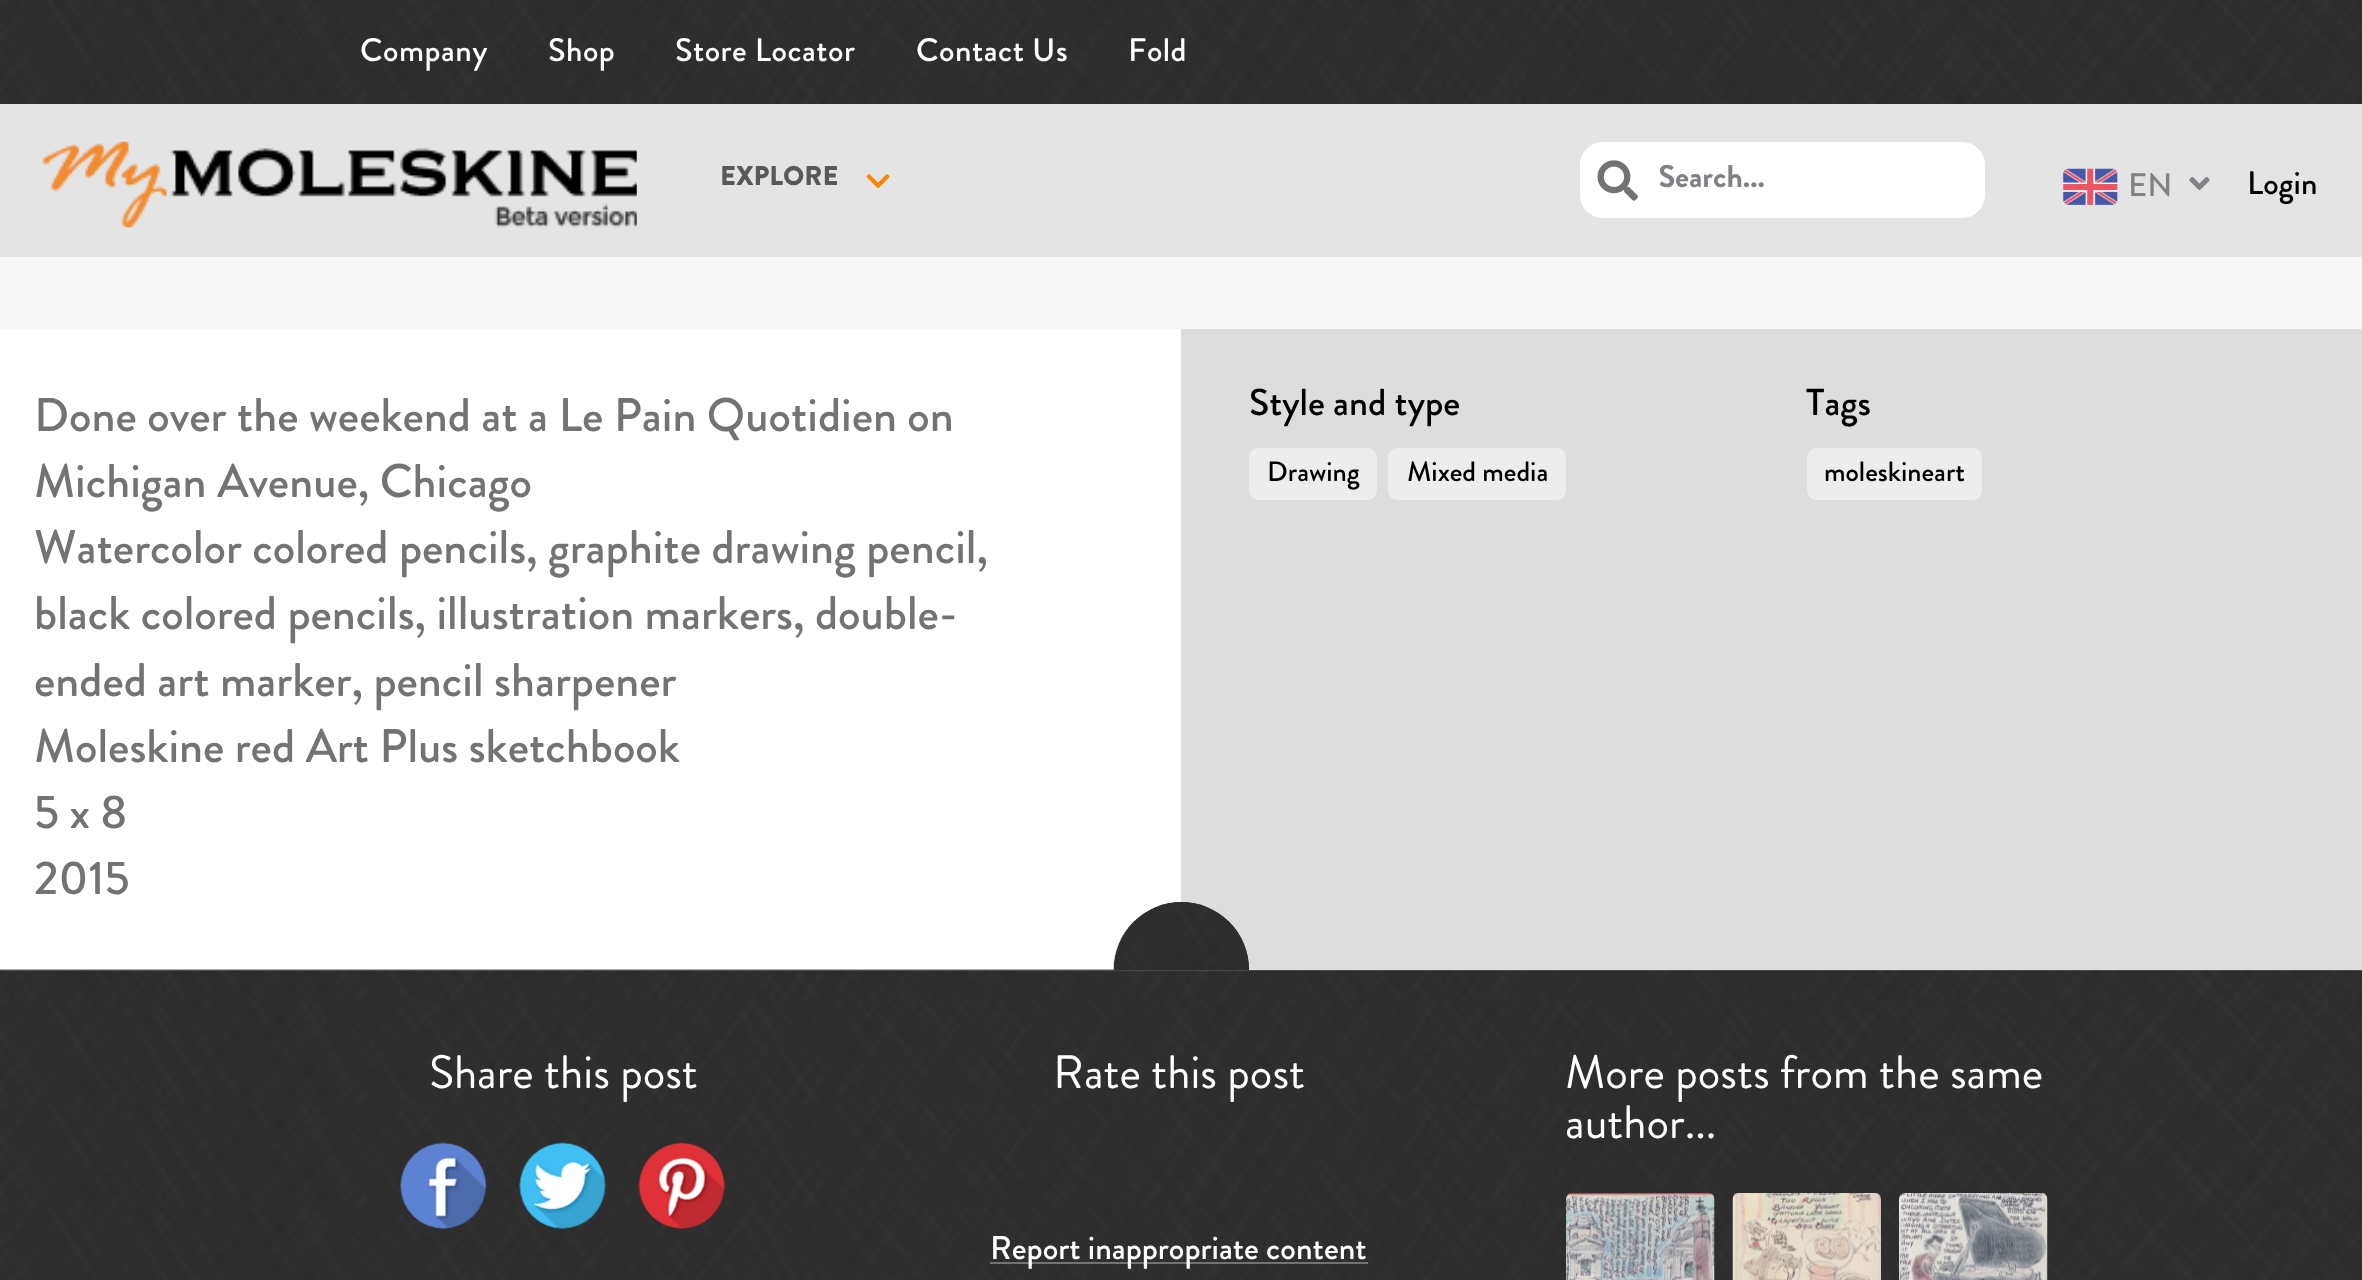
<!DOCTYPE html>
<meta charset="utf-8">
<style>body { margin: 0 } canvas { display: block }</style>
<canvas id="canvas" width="2362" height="1280"></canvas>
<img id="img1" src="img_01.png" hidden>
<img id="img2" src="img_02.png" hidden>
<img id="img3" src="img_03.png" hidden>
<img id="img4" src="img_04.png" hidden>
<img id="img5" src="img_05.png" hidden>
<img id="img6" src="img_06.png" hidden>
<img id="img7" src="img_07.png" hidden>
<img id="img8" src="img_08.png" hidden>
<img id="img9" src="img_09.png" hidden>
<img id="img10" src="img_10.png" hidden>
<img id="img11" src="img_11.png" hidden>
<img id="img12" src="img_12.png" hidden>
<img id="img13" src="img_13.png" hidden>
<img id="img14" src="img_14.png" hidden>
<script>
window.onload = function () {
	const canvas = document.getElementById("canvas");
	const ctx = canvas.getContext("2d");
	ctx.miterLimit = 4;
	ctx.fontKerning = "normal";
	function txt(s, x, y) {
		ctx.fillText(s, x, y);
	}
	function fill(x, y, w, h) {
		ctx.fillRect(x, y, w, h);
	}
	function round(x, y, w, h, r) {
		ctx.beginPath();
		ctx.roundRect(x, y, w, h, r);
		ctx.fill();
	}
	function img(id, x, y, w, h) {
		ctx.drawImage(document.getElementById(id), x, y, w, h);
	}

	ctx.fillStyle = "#FFFFFF";
	fill(0, 0, 2362, 1280);
	ctx.fillStyle = "#E4E4E4";
	fill(0, 104, 2362, 153);
	img("img1", 0, 0, 2362, 104);
	img("img2", 42, 141, 595, 87);
	img("img3", 866, 174, 24, 15);
	ctx.fillStyle = "#FFFFFF";
	round(1580, 142, 405, 76, 23);
	img("img4", 1597, 160, 41, 41);
	img("img5", 2062, 168, 56, 37);
	img("img6", 2189, 177, 21, 13);
	ctx.fillStyle = "#F7F7F7";
	fill(0, 257, 2362, 72);
	img("img7", 0, 969, 2362, 311);
	ctx.fillStyle = "#DDDDDD";
	fill(1181, 329, 1181, 641);
	ctx.fillStyle = "#EDEDED";
	round(1249, 448, 128, 52, 9);
	round(1388, 448, 178, 52, 9);
	round(1807, 448, 175, 52, 9);
	ctx.fillStyle = "#2B2B2B";
	ctx.beginPath();
	ctx.roundRect(1114, 902, 135, 68, [67.5, 67.5, 0, 0]);
	ctx.fill();
	img("img8", 1113, 902, 136, 68);
	img("img9", 400, 1142, 87, 87);
	img("img10", 519, 1142, 87, 87);
	img("img11", 638, 1142, 87, 87);
	ctx.fillStyle = "#737373";
	fill(990, 1262, 378, 2);
	img("img12", 1566, 1193, 149, 87);
	img("img13", 1732, 1193, 149, 87);
	img("img14", 1899, 1193, 149, 87);
	ctx.letterSpacing = "0.5px";
	ctx.font = "500 32.5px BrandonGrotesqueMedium";
	ctx.fillStyle = "#FFFFFF";
	txt("Company", 360, 61);
	txt("Shop", 548, 61);
	txt("Store Locator", 675, 61);
	txt("Contact Us", 916, 61);
	txt("Fold", 1128, 61);
	ctx.letterSpacing = "0px";
	ctx.font = "900 27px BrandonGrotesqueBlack";
	ctx.fillStyle = "#58595B";
	txt("EXPLORE", 720, 185);
	ctx.font = "bold 31.5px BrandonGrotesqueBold";
	ctx.fillStyle = "#808285";
	txt("Search...", 1658, 187);
	ctx.font = "500 32.5px BrandonGrotesqueMedium";
	txt("EN", 2128, 196);
	ctx.fillStyle = "#000000";
	txt("Login", 2247, 194);
	ctx.font = "500 47.25px BrandonGrotesqueMedium";
	ctx.fillStyle = "#737373";
	txt("Done over the weekend at a Le Pain Quotidien on", 34, 431);
	txt("Michigan Avenue, Chicago", 34, 497);
	txt("Watercolor colored pencils, graphite drawing pencil,", 34, 563);
	txt("black colored pencils, illustration markers, double-", 34, 629);
	txt("ended art marker, pencil sharpener", 34, 696);
	txt("Moleskine red Art Plus sketchbook", 34, 762);
	txt("5 x 8", 34, 828);
	txt("2015", 34, 894);
	ctx.font = "500 37.5px BrandonGrotesqueMedium";
	ctx.fillStyle = "#000000";
	txt("Style and type", 1249, 415);
	ctx.font = "500 28px BrandonGrotesqueMedium";
	txt("Drawing", 1267, 481);
	txt("Mixed media", 1407, 481);
	ctx.font = "500 37.5px BrandonGrotesqueMedium";
	txt("Tags", 1806, 415);
	ctx.font = "500 28px BrandonGrotesqueMedium";
	txt("moleskineart", 1824, 481);
	ctx.font = "46.75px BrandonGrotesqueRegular";
	ctx.fillStyle = "#FFFFFF";
	txt("Share this post", 429, 1088);
	txt("Rate this post", 1053, 1088);
	ctx.font = "500 32.8px BrandonGrotesqueMedium";
	txt("Report inappropriate content", 990, 1259);
	ctx.font = "46.75px BrandonGrotesqueRegular";
	txt("More posts from the same", 1565, 1088);
	txt("author...", 1565, 1138);
};
</script>
